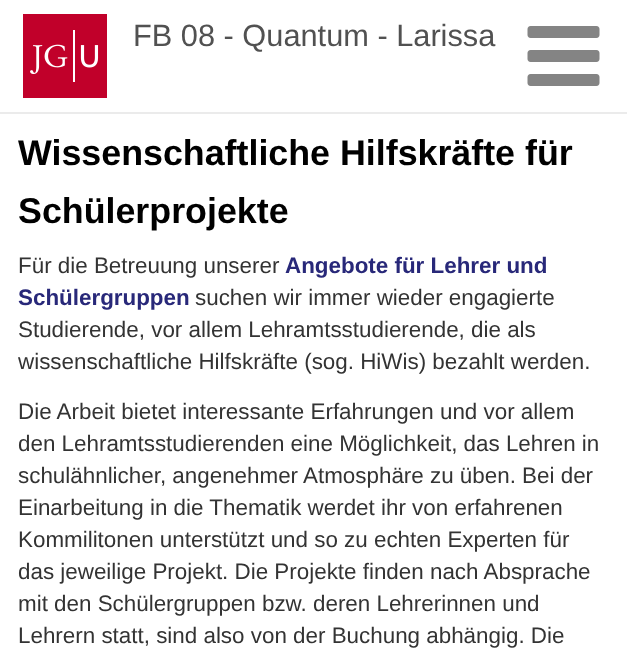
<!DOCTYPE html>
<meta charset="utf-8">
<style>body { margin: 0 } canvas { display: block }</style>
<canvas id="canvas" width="627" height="651"></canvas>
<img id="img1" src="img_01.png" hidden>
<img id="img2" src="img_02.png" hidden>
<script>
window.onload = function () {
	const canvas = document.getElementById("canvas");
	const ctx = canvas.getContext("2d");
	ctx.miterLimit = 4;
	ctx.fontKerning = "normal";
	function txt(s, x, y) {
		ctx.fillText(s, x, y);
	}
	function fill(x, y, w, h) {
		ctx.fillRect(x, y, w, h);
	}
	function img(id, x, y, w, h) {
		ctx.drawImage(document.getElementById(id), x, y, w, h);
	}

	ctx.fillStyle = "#FFFFFF";
	fill(0, 0, 627, 651);
	ctx.fillStyle = "#EBEBEB";
	fill(0, 112, 627, 2);
	img("img1", 23, 14, 84, 84);
	img("img2", 527, 26, 73, 60);
	ctx.font = "30.75px Liberation Sans";
	ctx.fillStyle = "#515151";
	txt("FB 08 - Quantum - Larissa", 133, 46);
	ctx.font = "bold 35.8px Liberation Sans";
	ctx.fillStyle = "#000000";
	txt("Wissenschaftliche Hilfskräfte für", 18, 165);
	txt("Schülerprojekte", 18, 223);
	ctx.font = "22.4px Liberation Sans";
	ctx.fillStyle = "#333333";
	txt("Für die Betreuung unserer", 18, 273);
	ctx.font = "bold 22.4px Liberation Sans";
	ctx.fillStyle = "#282879";
	txt("Angebote für Lehrer und", 285, 273);
	txt("Schülergruppen", 18, 305);
	ctx.font = "22.4px Liberation Sans";
	ctx.fillStyle = "#333333";
	txt("suchen wir immer wieder engagierte", 195, 305);
	txt("Studierende, vor allem Lehramtsstudierende, die als", 18, 337);
	txt("wissenschaftliche Hilfskräfte (sog. HiWis) bezahlt werden.", 18, 369);
	txt("Die Arbeit bietet interessante Erfahrungen und vor allem", 18, 419);
	txt("den Lehramtsstudierenden eine Möglichkeit, das Lehren in", 18, 451);
	txt("schulähnlicher, angenehmer Atmosphäre zu üben. Bei der", 18, 483);
	txt("Einarbeitung in die Thematik werdet ihr von erfahrenen", 18, 515);
	txt("Kommilitonen unterstützt und so zu echten Experten für", 18, 547);
	txt("das jeweilige Projekt. Die Projekte finden nach Absprache", 18, 579);
	txt("mit den Schülergruppen bzw. deren Lehrerinnen und", 18, 611);
	txt("Lehrern statt, sind also von der Buchung abhängig. Die", 18, 643);
};
</script>
